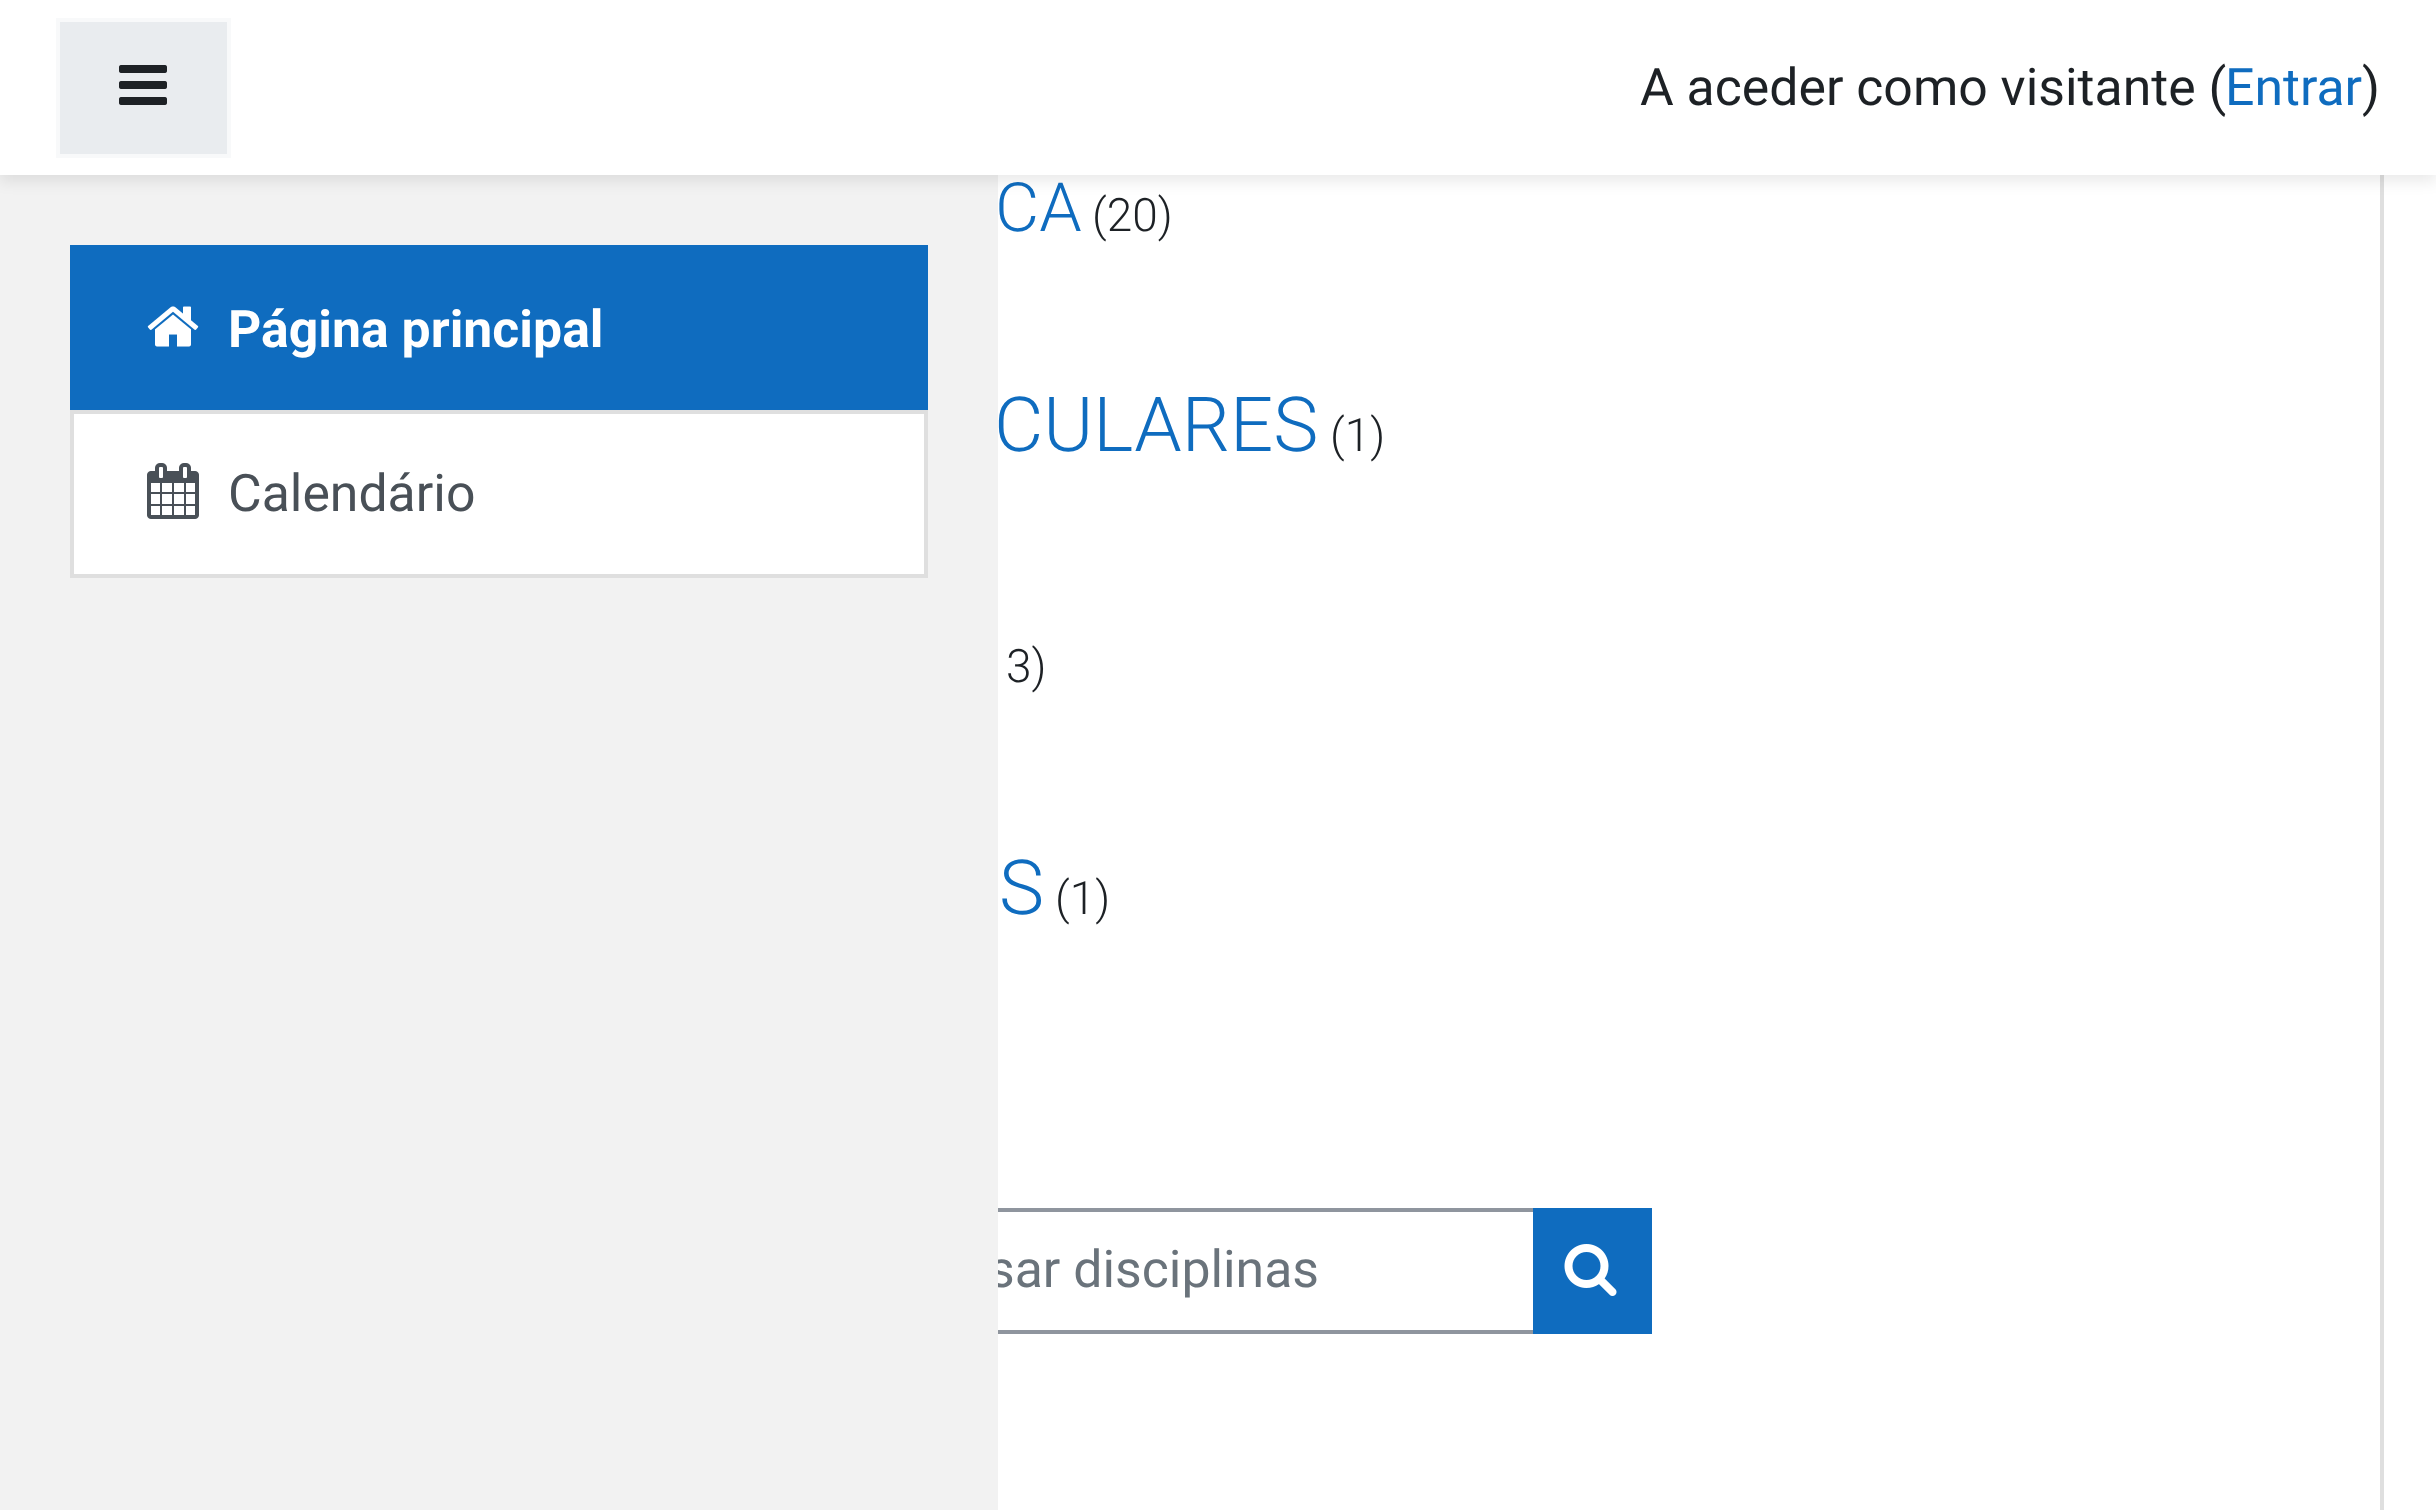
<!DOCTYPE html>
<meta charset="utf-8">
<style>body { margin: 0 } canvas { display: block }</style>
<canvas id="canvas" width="2436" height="1510"></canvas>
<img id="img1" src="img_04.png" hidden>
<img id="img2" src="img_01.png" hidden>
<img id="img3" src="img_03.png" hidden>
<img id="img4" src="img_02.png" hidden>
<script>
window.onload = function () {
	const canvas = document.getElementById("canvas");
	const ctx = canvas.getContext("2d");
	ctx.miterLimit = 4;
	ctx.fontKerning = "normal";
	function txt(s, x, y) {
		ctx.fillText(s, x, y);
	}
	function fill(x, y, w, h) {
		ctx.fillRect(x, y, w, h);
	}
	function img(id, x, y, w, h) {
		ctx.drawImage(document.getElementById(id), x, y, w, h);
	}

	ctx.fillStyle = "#FFFFFF";
	fill(0, 0, 2436, 1510);
	ctx.strokeStyle = "#DFDFDF";
	ctx.lineWidth = 4;
	ctx.strokeRect(55, -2, 2327, 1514);
	ctx.strokeStyle = "#8F959E";
	ctx.strokeRect(790, 1210, 745, 122);
	ctx.fillStyle = "#0F6CBF";
	fill(1533, 1208, 119, 126);
	img("img1", 1564, 1244, 53, 52);
	ctx.font = "300 68px Roboto";
	txt("CA", 995, 231);
	ctx.font = "300 46px Roboto";
	ctx.fillStyle = "#1D2125";
	txt("(20)", 1092, 231);
	ctx.font = "300 76px Roboto";
	ctx.fillStyle = "#0F6CBF";
	txt("CULARES", 994, 451);
	ctx.font = "300 46px Roboto";
	ctx.fillStyle = "#1D2125";
	txt("(1)", 1330, 451);
	txt("3)", 1006, 682);
	ctx.font = "300 76px Roboto";
	ctx.fillStyle = "#0F6CBF";
	txt("S", 999, 914);
	ctx.font = "300 46px Roboto";
	ctx.fillStyle = "#1D2125";
	txt("(1)", 1055, 914);
	ctx.font = "51.75px Roboto";
	ctx.fillStyle = "#6A737B";
	txt("sar disciplinas", 988, 1287);
	ctx.fillStyle = "#F2F2F2";
	fill(0, 175, 998, 1335);
	ctx.fillStyle = "rgba(0, 0, 0, 0.08)";
	ctx.filter = "blur(7px)";
	ctx.beginPath();
	ctx.rect(0, 7, 2436, 175);
	ctx.fill();
	ctx.filter = "none";
	ctx.fillStyle = "#FFFFFF";
	fill(0, 0, 2436, 175);
	ctx.fillStyle = "#1D2125";
	txt(")", 2362, 105);
	ctx.fillStyle = "#0F6CBF";
	txt("Entrar", 2225, 105);
	ctx.fillStyle = "#1D2125";
	txt("A aceder como visitante (", 1640, 105);
	ctx.fillStyle = "#E9ECEF";
	ctx.beginPath();
	ctx.rect(58, 20, 171, 136);
	ctx.fill();
	ctx.strokeStyle = "#F8F9FA";
	ctx.stroke();
	img("img2", 119, 65, 48, 40);
	ctx.fillStyle = "#FFFFFF";
	ctx.beginPath();
	ctx.rect(72, 412, 854, 164);
	ctx.fill();
	ctx.strokeStyle = "#DFDFDF";
	ctx.stroke();
	ctx.fillStyle = "#495057";
	txt("Calendário", 228, 511);
	img("img3", 147, 463, 52, 56);
	ctx.fillStyle = "#0F6CBF";
	fill(70, 245, 858, 165);
	ctx.font = "bold 51.75px Roboto";
	ctx.fillStyle = "#FFFFFF";
	txt("Página principal", 228, 347);
	img("img4", 147, 306, 52, 41);
};
</script>
